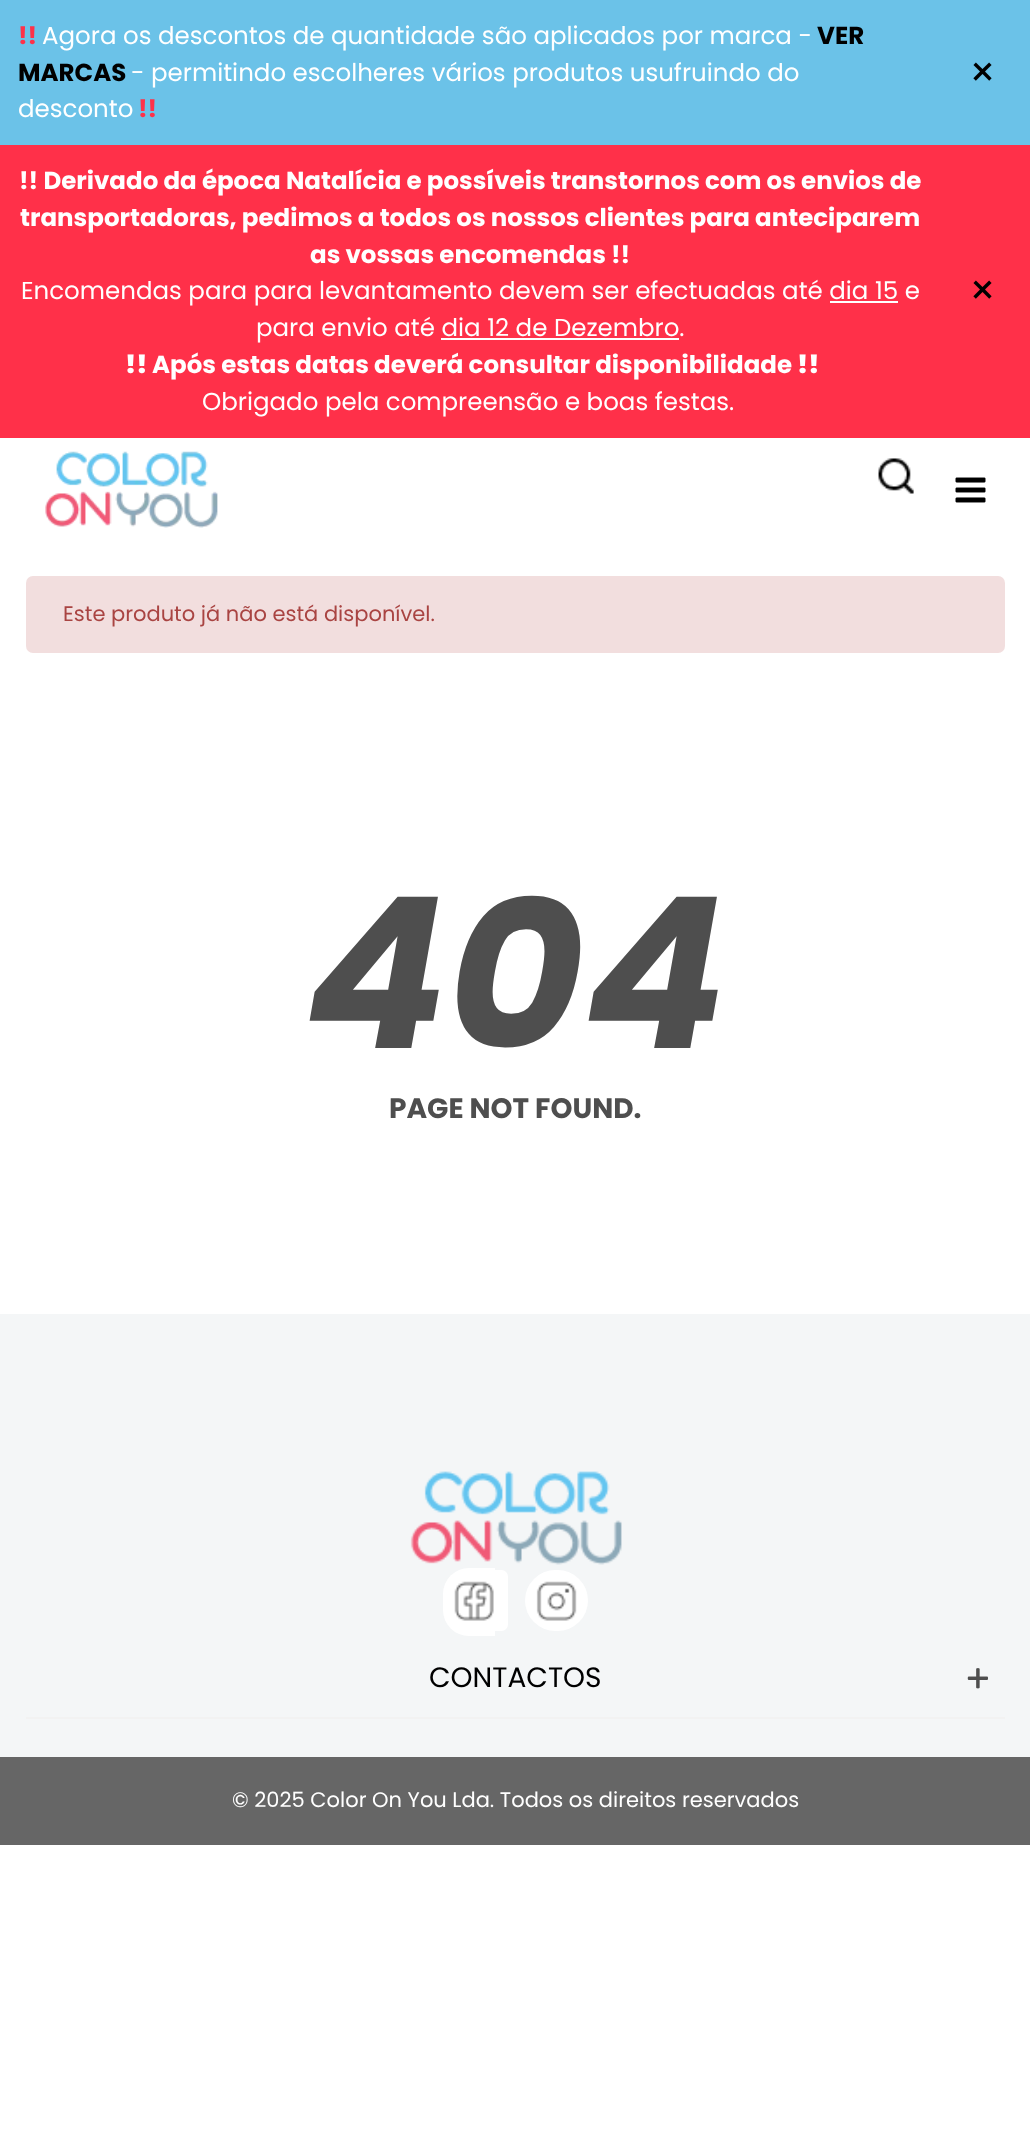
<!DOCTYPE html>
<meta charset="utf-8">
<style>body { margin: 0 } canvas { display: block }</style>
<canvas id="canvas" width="1030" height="2139"></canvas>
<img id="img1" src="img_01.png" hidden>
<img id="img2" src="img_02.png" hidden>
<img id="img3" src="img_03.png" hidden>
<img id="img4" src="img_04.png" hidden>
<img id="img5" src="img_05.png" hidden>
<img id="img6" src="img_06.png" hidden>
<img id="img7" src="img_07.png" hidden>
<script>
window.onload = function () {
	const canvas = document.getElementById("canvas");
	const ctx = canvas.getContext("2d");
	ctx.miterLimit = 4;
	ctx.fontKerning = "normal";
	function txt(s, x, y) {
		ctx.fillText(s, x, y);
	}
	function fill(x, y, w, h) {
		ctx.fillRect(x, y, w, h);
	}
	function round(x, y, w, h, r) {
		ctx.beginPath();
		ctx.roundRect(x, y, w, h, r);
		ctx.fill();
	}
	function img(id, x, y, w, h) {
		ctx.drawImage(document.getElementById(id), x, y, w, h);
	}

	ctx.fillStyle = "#FFFFFF";
	fill(0, 0, 1030, 2139);
	ctx.fillStyle = "#6BC2E8";
	fill(0, 0, 1030, 145);
	ctx.fillStyle = "#FF3049";
	fill(0, 145, 1030, 293);
	ctx.fillStyle = "#FFFFFF";
	fill(830, 301, 68, 2);
	fill(441, 338, 238, 2);
	img("img1", 45, 451, 173, 77);
	img("img2", 878, 458, 36, 36);
	img("img3", 955, 477, 31, 26);
	ctx.fillStyle = "#F2DEDE";
	round(26, 576, 979, 77, 7);
	ctx.fillStyle = "#F4F6F7";
	fill(0, 1314, 1030, 443);
	img("img4", 410, 1471, 212, 94);
	ctx.fillStyle = "#FFFFFF";
	ctx.beginPath();
	ctx.roundRect(443, 1568, 52, 68, [26, 0, 0, 26]);
	ctx.fill();
	ctx.beginPath();
	ctx.roundRect(495, 1570, 13, 61, [0, 6.5, 6.5, 0]);
	ctx.fill();
	round(525, 1570, 63, 61, 30.5);
	img("img5", 454, 1581, 40, 40);
	img("img6", 536, 1581, 41, 40);
	ctx.fillStyle = "#F2F2F2";
	fill(26, 1717, 979, 2);
	img("img7", 967, 1668, 21, 21);
	ctx.fillStyle = "#666666";
	fill(0, 1757, 1030, 88);
	ctx.font = "bold 24.5px Poppins";
	ctx.fillStyle = "#FF3149";
	txt("!!", 18, 44);
	ctx.font = "24.5px Poppins";
	ctx.fillStyle = "#FFFFFF";
	txt("Agora os descontos de quantidade são aplicados por marca -", 42, 44);
	ctx.font = "bold 24.5px Poppins";
	ctx.fillStyle = "#000000";
	txt("VER", 817, 44);
	txt("MARCAS", 18, 81);
	ctx.font = "24.5px Poppins";
	ctx.fillStyle = "#FFFFFF";
	txt("- permitindo escolheres vários produtos usufruindo do", 131, 81);
	txt("desconto", 18, 117);
	ctx.font = "bold 24.5px Poppins";
	ctx.fillStyle = "#FF3149";
	txt("!!", 138, 117);
	ctx.font = "42px Poppins";
	ctx.fillStyle = "#000000";
	txt("×", 969, 87);
	ctx.font = "bold 24.5px Poppins";
	ctx.fillStyle = "#FFFFFF";
	txt("!! Derivado da época Natalícia e possíveis transtornos com os envios de", 19, 189);
	txt("transportadoras, pedimos a todos os nossos clientes para anteciparem", 20, 226);
	txt("as vossas encomendas !!", 310, 263);
	ctx.font = "24.5px Poppins";
	txt("Encomendas para para levantamento devem ser efectuadas até dia 15 e", 21, 299);
	txt("para envio até dia 12 de Dezembro.", 256, 336);
	ctx.font = "900 24.5px Poppins";
	txt("!!", 125, 373);
	ctx.font = "bold 24.5px Poppins";
	txt("Após estas datas deverá consultar disponibilidade", 152, 373);
	ctx.font = "900 24.5px Poppins";
	txt("!!", 797, 373);
	ctx.font = "24.5px Poppins";
	txt("Obrigado pela compreensão e boas festas.", 202, 410);
	ctx.font = "42px Poppins";
	ctx.fillStyle = "#000000";
	txt("×", 969, 305);
	ctx.font = "21px Poppins";
	ctx.fillStyle = "#A94442";
	txt("Este produto já não está disponível.", 63, 621);
	ctx.font = "italic bold 210px Poppins";
	ctx.fillStyle = "#4E4E4E";
	txt("404", 305, 1048);
	ctx.font = "bold 28px Poppins";
	txt("PAGE NOT FOUND.", 389, 1118);
	ctx.font = "28px Poppins";
	ctx.fillStyle = "#000000";
	txt("CONTACTOS", 429, 1687);
	ctx.font = "21px Poppins";
	ctx.fillStyle = "#FFFFFF";
	txt("© 2025 Color On You Lda. Todos os direitos reservados", 232, 1807);
};
</script>
